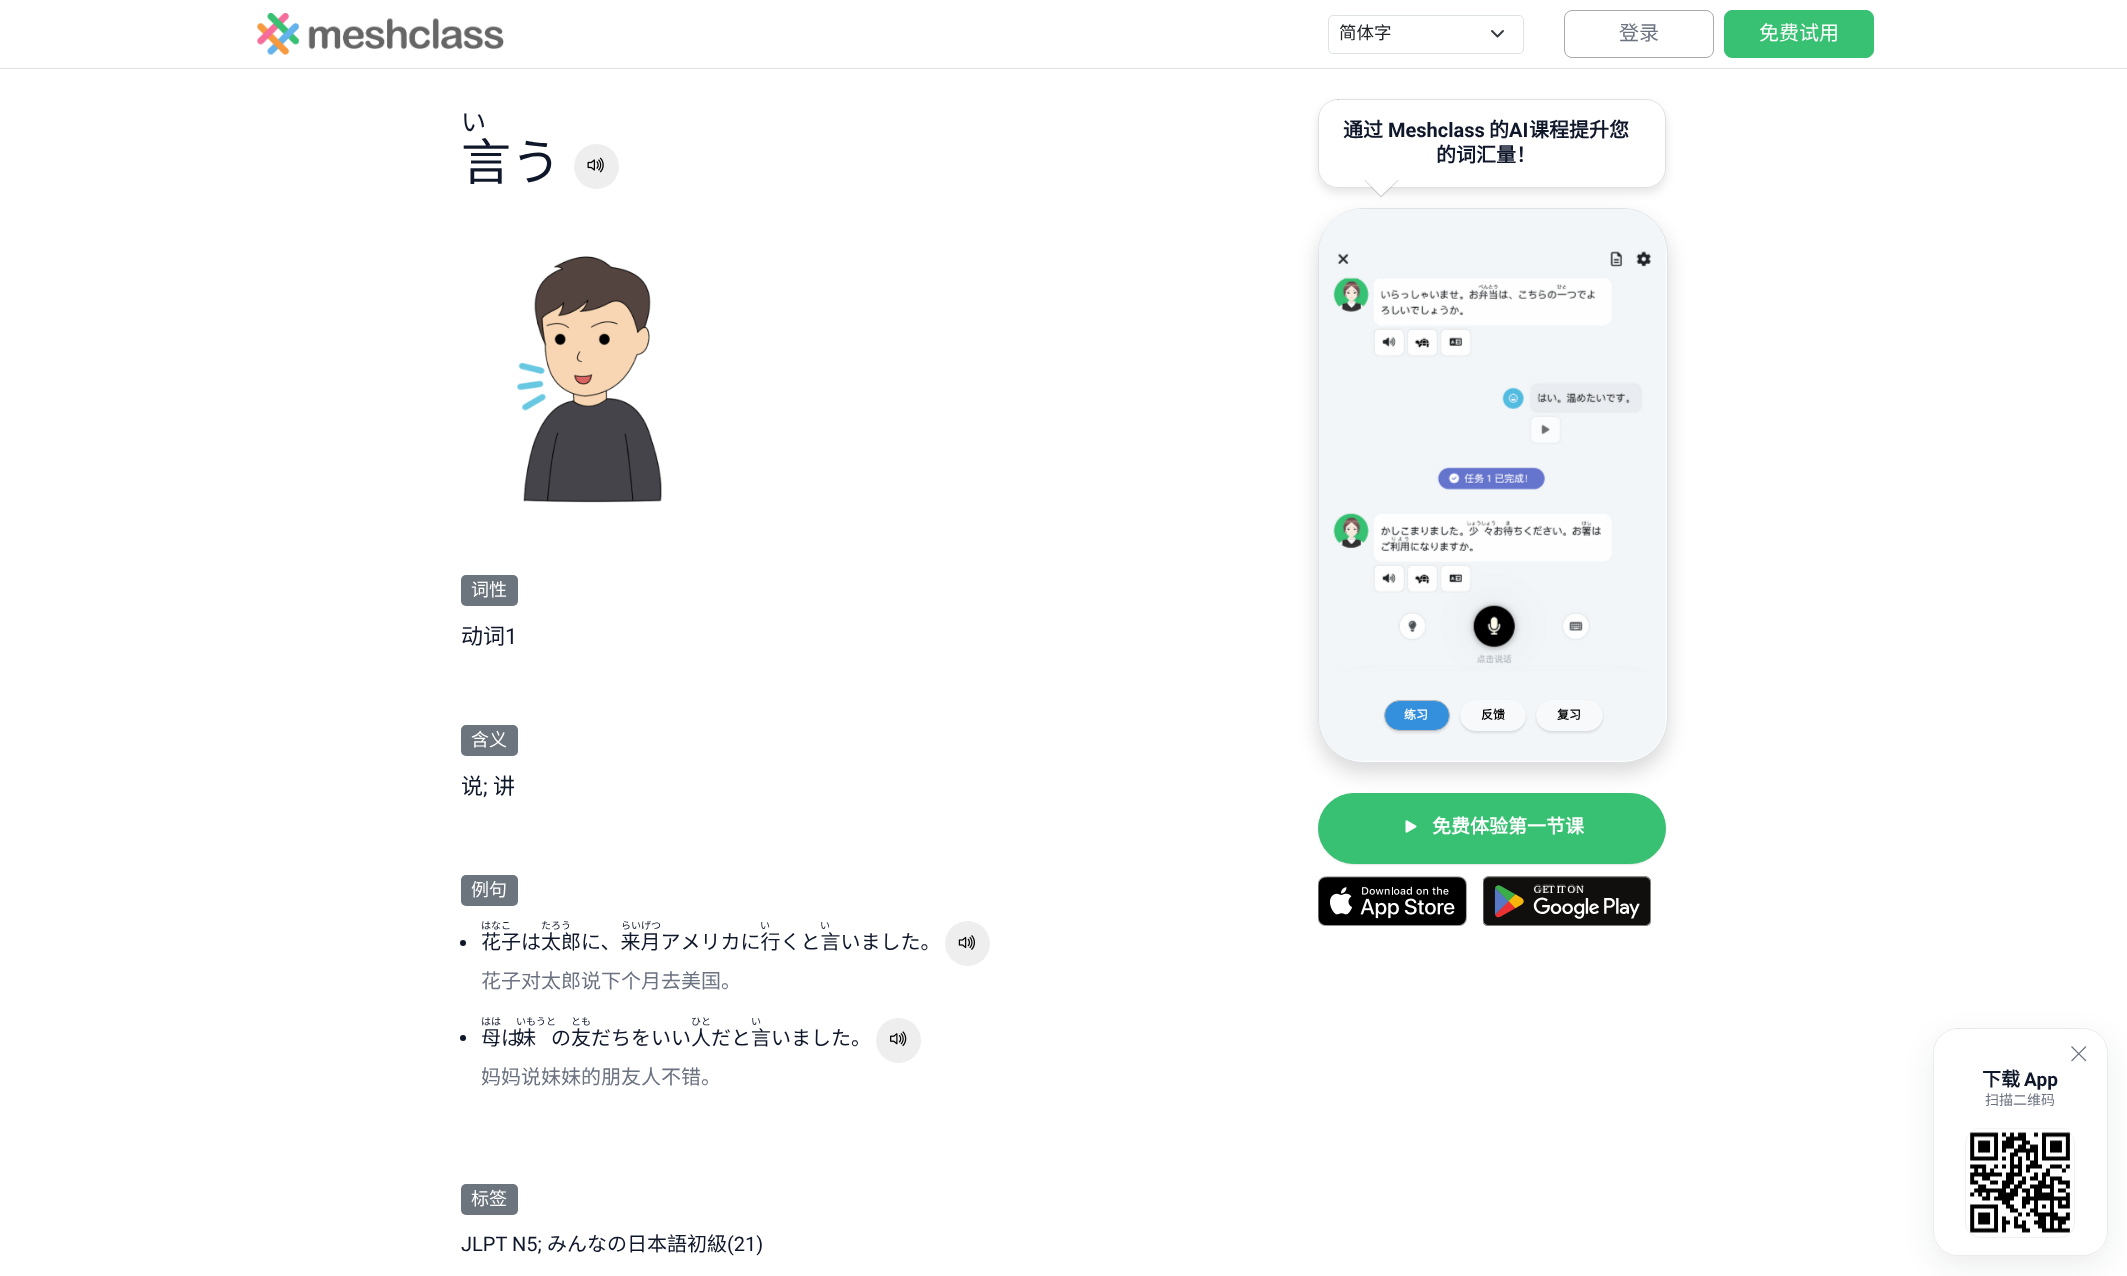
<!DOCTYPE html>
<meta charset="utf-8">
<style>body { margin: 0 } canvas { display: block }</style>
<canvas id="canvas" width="2127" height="1276"></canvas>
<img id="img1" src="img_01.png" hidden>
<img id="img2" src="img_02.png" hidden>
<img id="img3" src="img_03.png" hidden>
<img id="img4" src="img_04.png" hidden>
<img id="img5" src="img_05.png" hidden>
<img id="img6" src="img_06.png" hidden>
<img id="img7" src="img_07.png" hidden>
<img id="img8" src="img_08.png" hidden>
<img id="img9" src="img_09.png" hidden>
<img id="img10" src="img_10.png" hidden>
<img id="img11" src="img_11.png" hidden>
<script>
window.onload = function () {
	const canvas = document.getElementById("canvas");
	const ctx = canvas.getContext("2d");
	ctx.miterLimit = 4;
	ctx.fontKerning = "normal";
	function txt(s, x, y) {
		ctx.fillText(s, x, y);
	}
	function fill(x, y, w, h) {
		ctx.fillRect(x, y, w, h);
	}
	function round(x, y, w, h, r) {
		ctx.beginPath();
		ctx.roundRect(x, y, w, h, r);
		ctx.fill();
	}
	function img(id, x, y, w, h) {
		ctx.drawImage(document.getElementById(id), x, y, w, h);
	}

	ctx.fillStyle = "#FFFFFF";
	fill(0, 0, 2127, 1276);
	ctx.fillStyle = "#DEE2E6";
	fill(0, 68, 2127, 1);
	img("img1", 257, 13, 247, 42);
	ctx.beginPath();
	ctx.moveTo(1492, 31);
	ctx.lineTo(1497.5, 36.5);
	ctx.lineTo(1503, 31);
	ctx.strokeStyle = "#343A40";
	ctx.lineWidth = 1.9;
	ctx.lineCap = "round";
	ctx.lineJoin = "round";
	ctx.stroke();
	ctx.beginPath();
	ctx.roundRect(1328.5, 15.5, 195, 38, 4.5);
	ctx.strokeStyle = "#DEE2E6";
	ctx.lineWidth = 1;
	ctx.lineJoin = "miter";
	ctx.stroke();
	ctx.beginPath();
	ctx.roundRect(1564.5, 10.5, 149, 47, 7.5);
	ctx.strokeStyle = "#AAAAAA";
	ctx.stroke();
	ctx.fillStyle = "#38C172";
	ctx.beginPath();
	ctx.roundRect(1724.5, 10.5, 149, 47, 7.5);
	ctx.fill();
	ctx.strokeStyle = "#38C172";
	ctx.stroke();
	ctx.fillStyle = "#EEEEEE";
	ctx.beginPath();
	ctx.arc(596.5, 166.5, 22.5, 0, Math.PI * 2);
	ctx.fill();
	img("img2", 587, 157, 17, 16);
	img("img3", 516, 256, 146, 247);
	ctx.fillStyle = "#6C757D";
	round(461, 575, 57, 31, 5);
	round(461, 725, 57, 31, 5);
	round(461, 875, 57, 31, 5);
	ctx.fillStyle = "#0F172A";
	ctx.beginPath();
	ctx.arc(463, 943, 3, 0, Math.PI * 2);
	ctx.fill();
	ctx.fillStyle = "#EEEEEE";
	ctx.beginPath();
	ctx.arc(967.5, 943.5, 22.5, 0, Math.PI * 2);
	ctx.fill();
	img("img4", 958, 935, 17, 15);
	ctx.fillStyle = "#0F172A";
	ctx.beginPath();
	ctx.arc(463, 1038, 3, 0, Math.PI * 2);
	ctx.fill();
	ctx.fillStyle = "#EEEEEE";
	ctx.beginPath();
	ctx.arc(898.5, 1040.5, 22.5, 0, Math.PI * 2);
	ctx.fill();
	img("img5", 890, 1031, 17, 16);
	ctx.fillStyle = "#6C757D";
	round(461, 1184, 57, 31, 5);
	ctx.fillStyle = "rgba(0, 0, 0, 0.1)";
	ctx.filter = "blur(5px)";
	ctx.beginPath();
	ctx.roundRect(1318, 104, 348, 89, 20);
	ctx.fill();
	ctx.filter = "none";
	ctx.fillStyle = "#FFFFFF";
	round(1318, 99, 348, 89, 20);
	ctx.beginPath();
	ctx.roundRect(1318.5, 99.5, 347, 88, 19.5);
	ctx.strokeStyle = "rgba(0, 0, 0, 0.12)";
	ctx.stroke();
	ctx.fillStyle = "rgba(0, 0, 0, 0.18)";
	ctx.beginPath();
	ctx.moveTo(1364, 180);
	ctx.lineTo(1399, 180);
	ctx.lineTo(1381, 197.5);
	ctx.closePath();
	ctx.fill();
	ctx.fillStyle = "#FFFFFF";
	ctx.beginPath();
	ctx.moveTo(1364, 179);
	ctx.lineTo(1399, 179);
	ctx.lineTo(1381, 196);
	ctx.closePath();
	ctx.fill();
	ctx.fillStyle = "rgba(0, 0, 0, 0.04)";
	ctx.filter = "blur(0.5px)";
	ctx.beginPath();
	ctx.roundRect(1318, 794, 348, 71, 35.5);
	ctx.fill();
	ctx.filter = "none";
	ctx.fillStyle = "rgba(0, 0, 0, 0.06)";
	ctx.filter = "blur(1px)";
	ctx.beginPath();
	ctx.roundRect(1318, 794, 348, 71, 35.5);
	ctx.fill();
	ctx.filter = "none";
	ctx.fillStyle = "#38C172";
	ctx.beginPath();
	ctx.roundRect(1318.5, 793.5, 347, 70, 35);
	ctx.fill();
	ctx.strokeStyle = "#38C172";
	ctx.stroke();
	ctx.fillStyle = "rgba(0, 0, 0, 0.15)";
	ctx.filter = "blur(10px)";
	ctx.beginPath();
	ctx.roundRect(1318, 218, 350, 555, 45);
	ctx.fill();
	ctx.filter = "none";
	ctx.fillStyle = "#FFFFFF";
	ctx.beginPath();
	ctx.roundRect(1318.5, 208.5, 349, 554, 44.5);
	ctx.fill();
	ctx.strokeStyle = "#DEE2E6";
	ctx.stroke();
	img("img6", 1319, 209, 347, 552);
	ctx.fillStyle = "rgba(0, 0, 0, 0.1)";
	ctx.filter = "blur(1px)";
	ctx.beginPath();
	ctx.roundRect(1384, 701, 66, 32, 16);
	ctx.fill();
	ctx.filter = "none";
	ctx.fillStyle = "#3490DC";
	ctx.beginPath();
	ctx.roundRect(1384.5, 700.5, 65, 30, 15);
	ctx.fill();
	ctx.strokeStyle = "#BABBBC";
	ctx.stroke();
	ctx.fillStyle = "rgba(0, 0, 0, 0.1)";
	ctx.filter = "blur(1px)";
	ctx.beginPath();
	ctx.roundRect(1460, 701, 66, 32, 16);
	ctx.fill();
	ctx.filter = "none";
	ctx.fillStyle = "#F8F9FA";
	ctx.beginPath();
	ctx.roundRect(1460.5, 700.5, 65, 30, 15);
	ctx.fill();
	ctx.strokeStyle = "#F8F9FA";
	ctx.stroke();
	ctx.fillStyle = "rgba(0, 0, 0, 0.1)";
	ctx.filter = "blur(1px)";
	ctx.beginPath();
	ctx.roundRect(1536, 701, 67, 32, 16);
	ctx.fill();
	ctx.filter = "none";
	ctx.fillStyle = "#F8F9FA";
	ctx.beginPath();
	ctx.roundRect(1536.5, 700.5, 66, 30, 15);
	ctx.fill();
	ctx.stroke();
	img("img7", 1405, 820, 12, 13);
	img("img8", 1318, 876, 150, 50);
	img("img9", 1483, 876, 168, 50);
	ctx.fillStyle = "rgba(16, 24, 40, 0.08)";
	ctx.filter = "blur(15px)";
	ctx.beginPath();
	ctx.roundRect(1933, 1038, 175, 228, 25);
	ctx.fill();
	ctx.filter = "none";
	ctx.fillStyle = "#FFFFFF";
	round(1933, 1028, 175, 228, 25);
	ctx.beginPath();
	ctx.roundRect(1933.5, 1028.5, 174, 227, 24.5);
	ctx.strokeStyle = "rgba(0, 0, 0, 0.08)";
	ctx.stroke();
	img("img10", 2071, 1046, 16, 16);
	ctx.beginPath();
	ctx.roundRect(1965.5, 1128.5, 109, 109, 14.5);
	ctx.strokeStyle = "#F0F0F0";
	ctx.stroke();
	img("img11", 1969, 1128, 102, 105);
	ctx.font = "17.5px Noto Sans CJK SC";
	ctx.fillStyle = "#212529";
	txt("简体字", 1339, 39);
	ctx.font = "20px Noto Sans CJK SC";
	ctx.fillStyle = "#6B7280";
	txt("登录", 1619, 40);
	ctx.fillStyle = "#FFFFFF";
	txt("免费试用", 1759, 40);
	ctx.font = "25px Noto Sans CJK SC";
	ctx.fillStyle = "#0F172A";
	txt("い", 461, 131);
	ctx.font = "50px Noto Sans CJK SC";
	txt("言う", 461, 180);
	ctx.font = "18px Noto Sans CJK SC";
	ctx.fillStyle = "#FFFFFF";
	txt("词性", 471, 596);
	ctx.font = "22px Noto Sans CJK SC";
	ctx.fillStyle = "#0F172A";
	txt("动词", 461, 644);
	ctx.font = "22px Roboto";
	txt("1", 505, 644);
	ctx.font = "18px Noto Sans CJK SC";
	ctx.fillStyle = "#FFFFFF";
	txt("含义", 471, 746);
	ctx.font = "22px Noto Sans CJK SC";
	ctx.fillStyle = "#0F172A";
	txt("说", 461, 794);
	ctx.font = "22px Roboto";
	txt(";", 483, 794);
	ctx.font = "22px Noto Sans CJK SC";
	txt("讲", 493, 794);
	ctx.font = "18px Noto Sans CJK SC";
	ctx.fillStyle = "#FFFFFF";
	txt("例句", 471, 896);
	ctx.font = "10px Noto Sans CJK SC";
	ctx.fillStyle = "#0F172A";
	txt("らいげつ", 621, 929);
	txt("はなこ", 481, 929);
	ctx.font = "20px Noto Sans CJK SC";
	txt("花子は太郎に、来月アメリカに行くと言いました。", 481, 949);
	ctx.font = "10px Noto Sans CJK SC";
	txt("たろう", 541, 929);
	txt("い", 760, 929);
	txt("い", 820, 929);
	ctx.font = "20px Noto Sans CJK SC";
	ctx.fillStyle = "#6B7280";
	txt("花子对太郎说下个月去美国。", 481, 988);
	ctx.font = "10px Noto Sans CJK SC";
	ctx.fillStyle = "#0F172A";
	txt("はは", 481, 1025);
	ctx.font = "20px Noto Sans CJK SC";
	txt("母は", 481, 1045);
	ctx.font = "10px Noto Sans CJK SC";
	txt("いもうと", 516, 1025);
	ctx.font = "20px Noto Sans CJK SC";
	txt("妹", 516, 1045);
	ctx.font = "10px Noto Sans CJK SC";
	txt("とも", 571, 1025);
	txt("ひと", 691, 1025);
	txt("い", 751, 1025);
	ctx.font = "20px Noto Sans CJK SC";
	txt("の友だちをいい人だと言いました。", 551, 1045);
	ctx.fillStyle = "#6B7280";
	txt("妈妈说妹妹的朋友人不错。", 481, 1084);
	ctx.font = "18px Noto Sans CJK SC";
	ctx.fillStyle = "#FFFFFF";
	txt("标签", 471, 1205);
	ctx.font = "20px Roboto";
	ctx.fillStyle = "#0F172A";
	txt("JLPT N5;", 461, 1251);
	ctx.font = "20px Noto Sans CJK SC";
	txt("みんなの日本語初級", 547, 1251);
	ctx.font = "20px Roboto";
	txt("(21)", 727, 1251);
	ctx.font = "bold 20px Noto Sans CJK SC";
	txt("通过", 1343, 137);
	ctx.font = "bold 20px Roboto";
	txt("Meshclass", 1388, 137);
	ctx.font = "bold 20px Noto Sans CJK SC";
	txt("的", 1489, 137);
	ctx.font = "bold 20px Roboto";
	txt("AI", 1509, 137);
	ctx.font = "bold 20px Noto Sans CJK SC";
	txt("课程提升您", 1529, 137);
	txt("的词汇量！", 1436, 162);
	ctx.font = "bold 12px Noto Sans CJK SC";
	ctx.fillStyle = "#FFFFFF";
	txt("练习", 1404, 719);
	ctx.fillStyle = "#000000";
	txt("反馈", 1481, 719);
	txt("复习", 1557, 719);
	ctx.font = "bold 19px Noto Sans CJK SC";
	ctx.fillStyle = "#FFFFFF";
	txt("免费体验第一节课", 1432, 833);
	ctx.fillStyle = "#0F172A";
	txt("下载", 1982, 1086);
	ctx.font = "bold 19px Roboto";
	txt("App", 2024, 1086);
	ctx.font = "14px Noto Sans CJK SC";
	ctx.fillStyle = "#6B7280";
	txt("扫描二维码", 1985, 1105);
};
</script>
